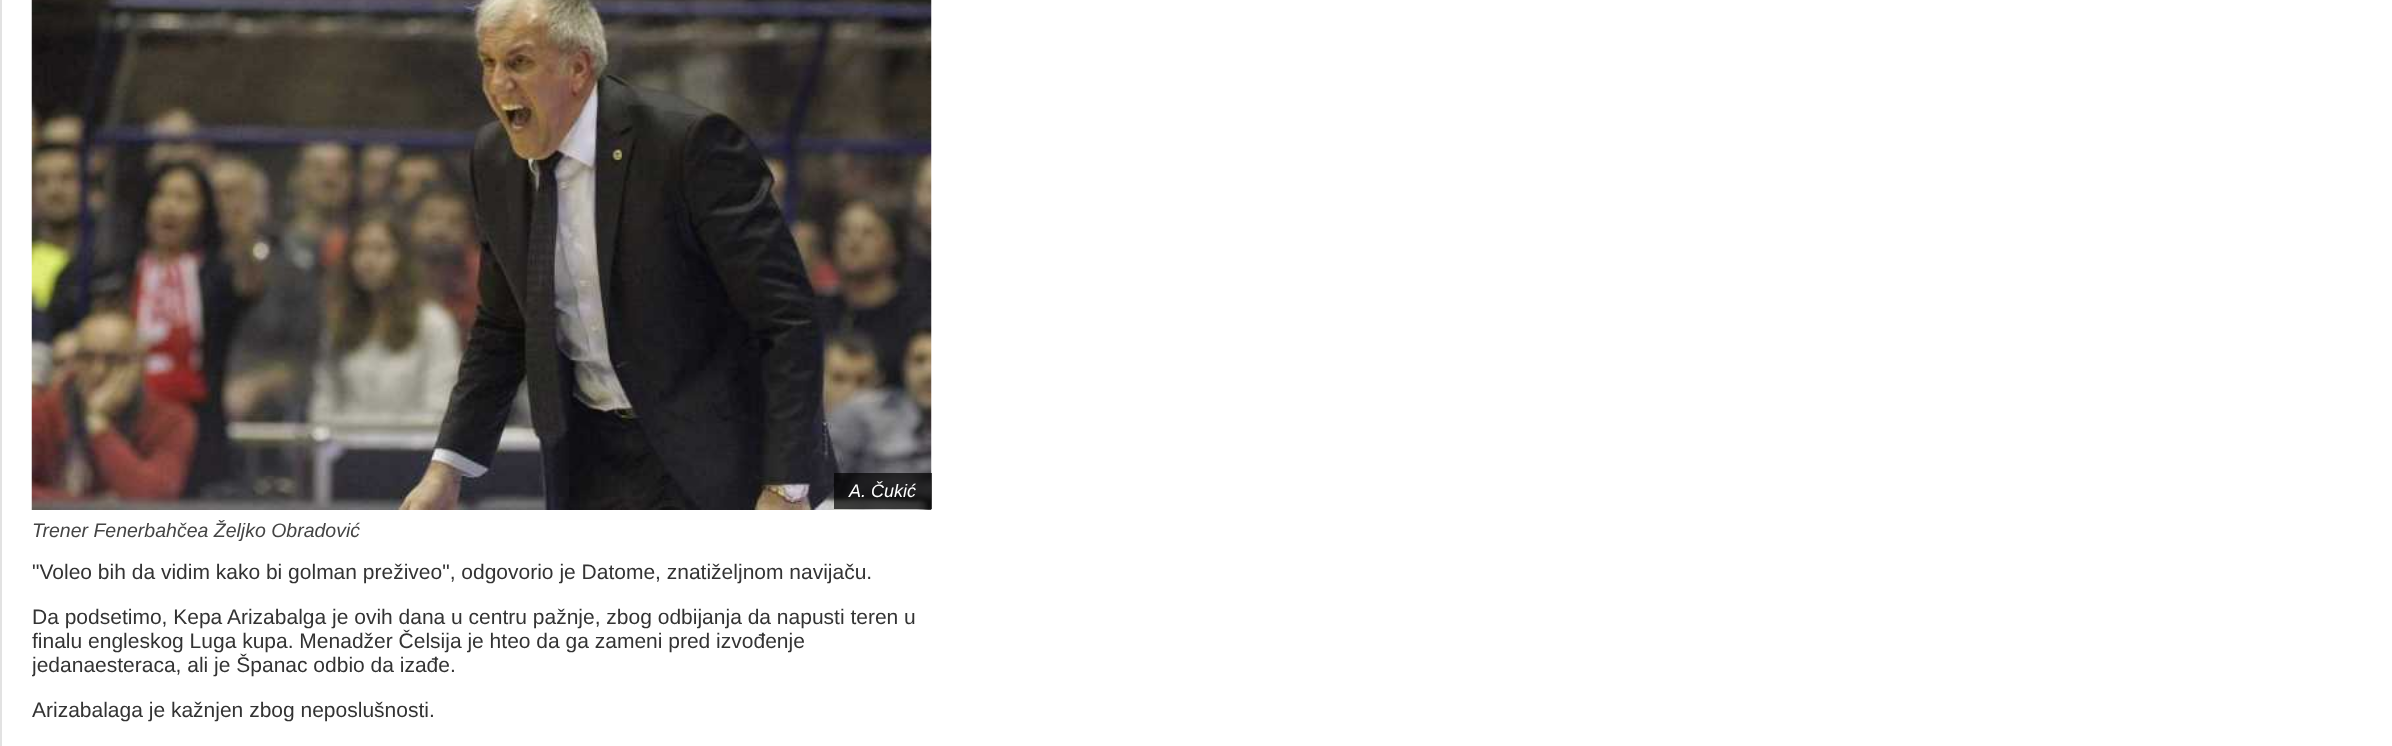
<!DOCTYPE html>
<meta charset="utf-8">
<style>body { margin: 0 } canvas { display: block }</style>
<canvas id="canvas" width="2392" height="746"></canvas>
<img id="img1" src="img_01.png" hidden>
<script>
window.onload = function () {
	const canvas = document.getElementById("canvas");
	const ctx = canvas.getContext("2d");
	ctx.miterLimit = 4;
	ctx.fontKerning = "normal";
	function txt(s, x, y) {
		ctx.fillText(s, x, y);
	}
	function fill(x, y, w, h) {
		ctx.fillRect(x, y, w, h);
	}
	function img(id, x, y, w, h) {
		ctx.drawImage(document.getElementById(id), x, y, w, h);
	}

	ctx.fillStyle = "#FFFFFF";
	fill(0, 0, 2392, 746);
	ctx.strokeStyle = "#E2E2E2";
	ctx.lineWidth = 2;
	ctx.strokeRect(1, -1, 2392, 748);
	img("img1", 31, 0, 901, 510);
	ctx.fillStyle = "rgba(0, 0, 0, 0.7)";
	fill(834, 473, 98, 36);
	ctx.font = "italic 18px Liberation Sans";
	ctx.fillStyle = "#FFFFFF";
	txt("A. Čukić", 849, 497);
	ctx.font = "italic 19.5px Liberation Sans";
	ctx.fillStyle = "#444444";
	txt("Trener Fenerbahčea Željko Obradović", 32, 537);
	ctx.font = "21px Liberation Sans";
	ctx.fillStyle = "#333333";
	txt("\"Voleo bih da vidim kako bi golman preživeo\", odgovorio je Datome, znatiželjnom navijaču.", 32, 579);
	txt("Da podsetimo, Kepa Arizabalga je ovih dana u centru pažnje, zbog odbijanja da napusti teren u", 32, 624);
	txt("finalu engleskog Luga kupa. Menadžer Čelsija je hteo da ga zameni pred izvođenje", 32, 648);
	ctx.save();
	ctx.beginPath();
	ctx.rect(32, 0, 900, 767);
	ctx.clip();
	txt("jedanaesteraca, ali je Španac odbio da izađe.", 32, 672);
	ctx.restore();
	txt("Arizabalaga je kažnjen zbog neposlušnosti.", 32, 717);
};
</script>
